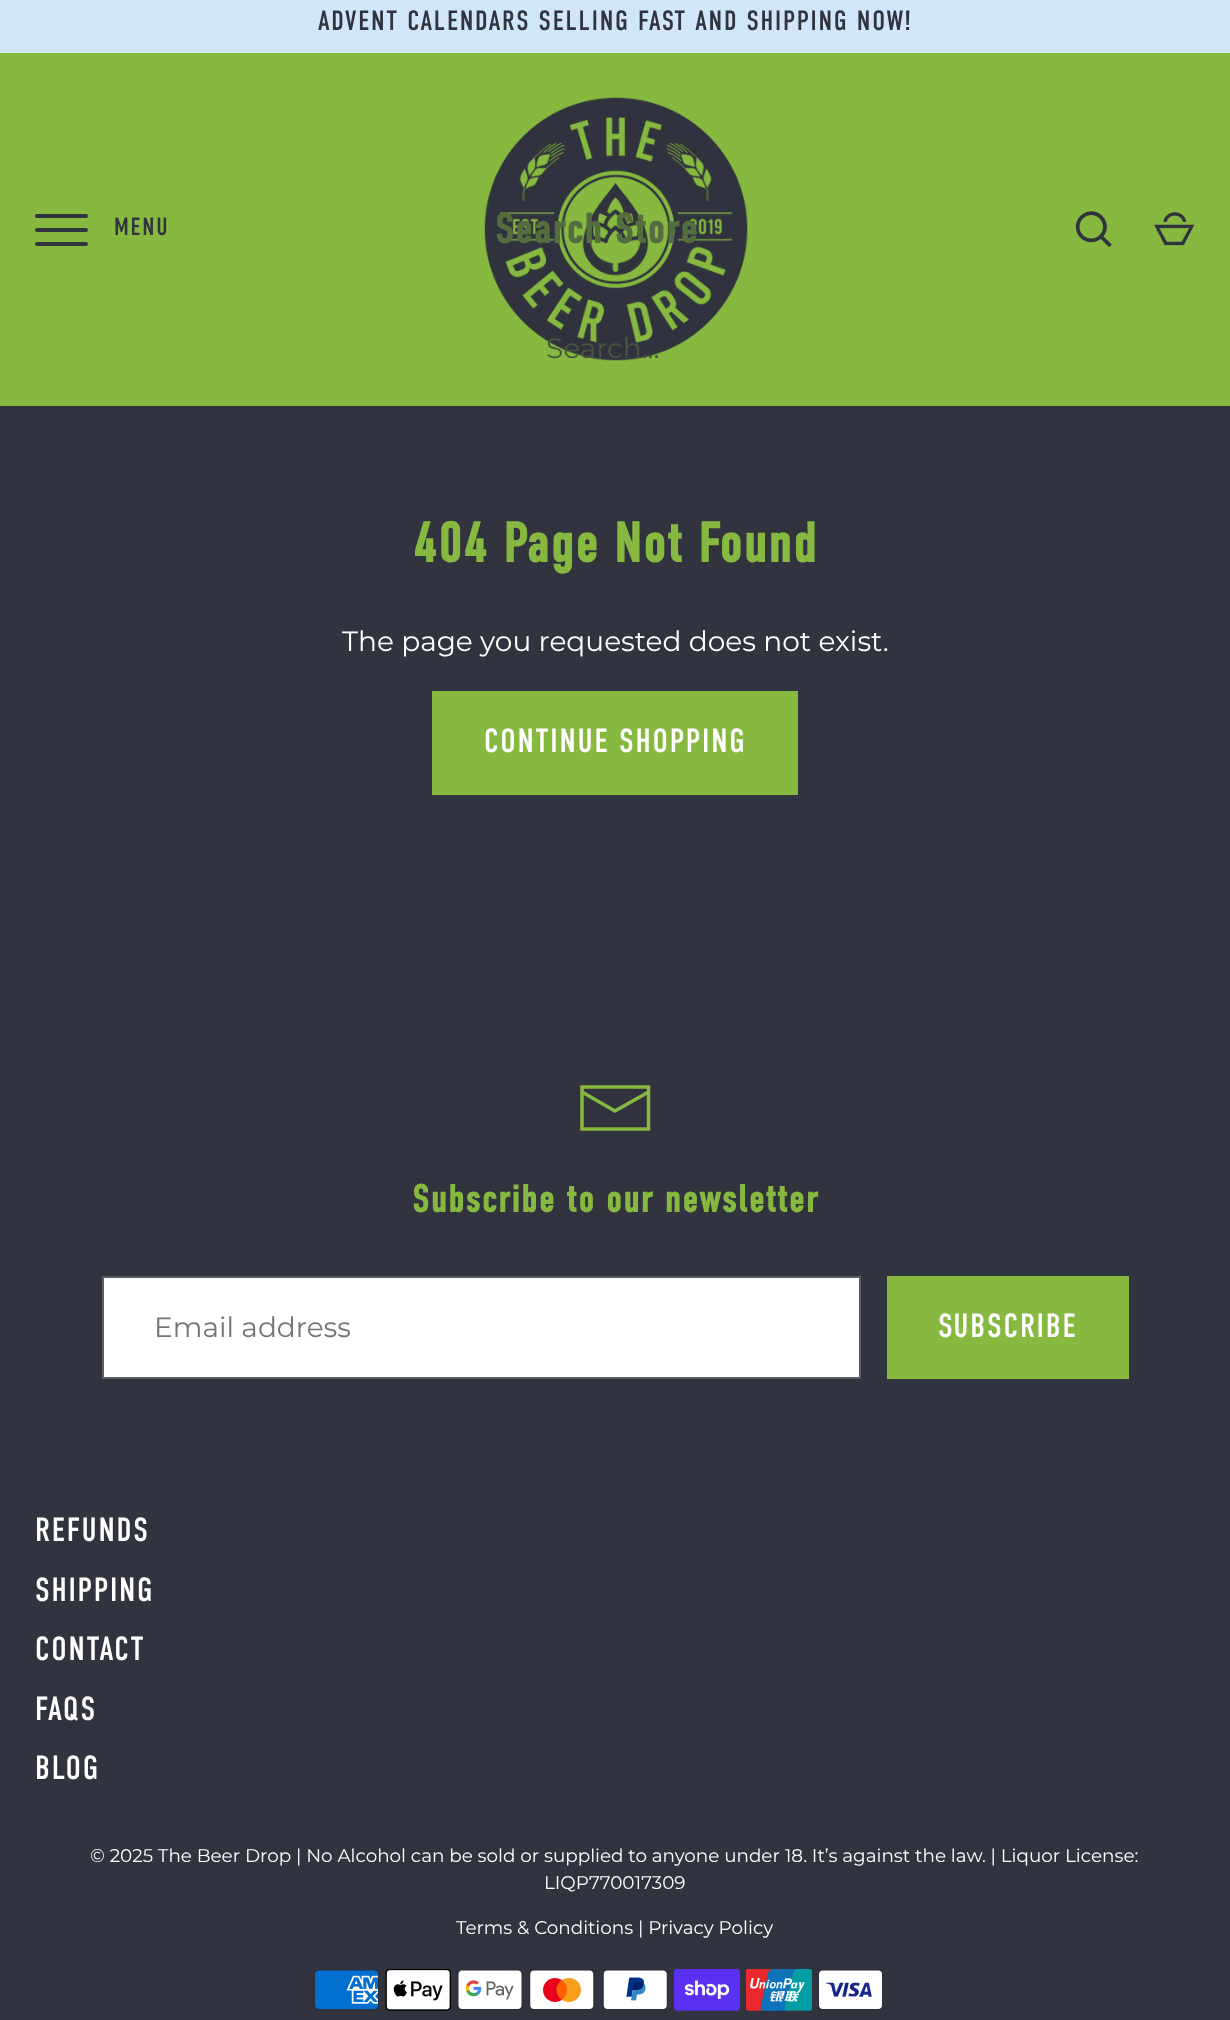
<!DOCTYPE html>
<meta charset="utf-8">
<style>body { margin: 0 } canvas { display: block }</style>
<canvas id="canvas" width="1230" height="2020"></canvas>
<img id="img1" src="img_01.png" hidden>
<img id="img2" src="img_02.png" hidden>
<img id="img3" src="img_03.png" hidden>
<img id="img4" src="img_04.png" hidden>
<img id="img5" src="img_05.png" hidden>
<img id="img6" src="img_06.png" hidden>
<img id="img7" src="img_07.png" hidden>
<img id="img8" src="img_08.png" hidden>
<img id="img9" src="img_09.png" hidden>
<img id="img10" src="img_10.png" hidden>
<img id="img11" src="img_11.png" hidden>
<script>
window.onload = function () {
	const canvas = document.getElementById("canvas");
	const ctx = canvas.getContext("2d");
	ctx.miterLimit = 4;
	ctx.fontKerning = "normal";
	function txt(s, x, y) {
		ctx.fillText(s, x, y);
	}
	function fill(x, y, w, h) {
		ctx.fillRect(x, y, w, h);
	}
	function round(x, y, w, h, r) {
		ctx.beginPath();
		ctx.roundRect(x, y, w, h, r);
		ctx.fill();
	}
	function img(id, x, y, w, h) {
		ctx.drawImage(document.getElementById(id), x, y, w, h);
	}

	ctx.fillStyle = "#31333F";
	fill(0, 0, 1230, 2020);
	ctx.fillStyle = "#D1E7F9";
	fill(0, 0, 1230, 53);
	ctx.fillStyle = "#87B940";
	fill(0, 53, 1230, 353);
	ctx.fillStyle = "#31333F";
	round(35, 214, 53, 4, 2);
	round(35, 228, 53, 4, 2);
	round(35, 242, 53, 4, 2);
	img("img1", 484, 97, 264, 264);
	img("img2", 1075, 211, 37, 36);
	img("img3", 1154, 212, 41, 34);
	ctx.fillStyle = "#87B940";
	fill(432, 691, 366, 104);
	ctx.beginPath();
	ctx.moveTo(582, 1087);
	ctx.lineTo(582, 1129);
	ctx.lineTo(648.5, 1129);
	ctx.lineTo(648.5, 1087);
	ctx.closePath();
	ctx.strokeStyle = "#87B940";
	ctx.lineWidth = 3.5;
	ctx.stroke();
	ctx.beginPath();
	ctx.moveTo(582, 1092);
	ctx.lineTo(615, 1111);
	ctx.lineTo(648.5, 1092);
	ctx.stroke();
	ctx.fillStyle = "#FFFFFF";
	ctx.beginPath();
	ctx.rect(103, 1277, 757, 101);
	ctx.fill();
	ctx.strokeStyle = "#5A5C65";
	ctx.lineWidth = 2;
	ctx.stroke();
	ctx.fillStyle = "#87B940";
	fill(887, 1276, 242, 103);
	img("img4", 314, 1969, 65, 41);
	img("img5", 385, 1969, 66, 42);
	img("img6", 457, 1969, 66, 41);
	img("img7", 529, 1969, 66, 41);
	img("img8", 602, 1969, 66, 41);
	img("img9", 674, 1969, 66, 42);
	img("img10", 746, 1969, 66, 42);
	img("img11", 818, 1969, 65, 41);
	ctx.letterSpacing = "1.75px";
	ctx.font = "28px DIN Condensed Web";
	ctx.fillStyle = "#31333F";
	txt("ADVENT CALENDARS SELLING FAST AND SHIPPING NOW!", 318, 30);
	ctx.font = "25px DIN Condensed Web";
	txt("MENU", 114, 235);
	ctx.font = "bold 42px DIN Condensed Web";
	ctx.fillStyle = "#556C3F";
	txt("Search Store", 495, 243);
	ctx.letterSpacing = "0px";
	ctx.font = "28px Montserrat";
	ctx.fillStyle = "#47563F";
	txt("Search...", 546, 358);
	ctx.letterSpacing = "1.75px";
	ctx.font = "bold 56px DIN Condensed Web";
	ctx.fillStyle = "#87B940";
	txt("404 Page Not Found", 413, 562);
	ctx.letterSpacing = "0px";
	ctx.font = "28px Montserrat";
	ctx.fillStyle = "#FFFFFF";
	txt("The page you requested does not exist.", 342, 651);
	ctx.letterSpacing = "1.75px";
	ctx.font = "33.5px DIN Condensed Web";
	txt("CONTINUE SHOPPING", 484, 752);
	ctx.font = "bold 38.5px DIN Condensed Web";
	ctx.fillStyle = "#87B940";
	txt("Subscribe to our newsletter", 412, 1212);
	ctx.letterSpacing = "0px";
	ctx.font = "28px Montserrat";
	ctx.fillStyle = "#757575";
	txt("Email address", 154, 1337);
	ctx.letterSpacing = "1.75px";
	ctx.font = "33.5px DIN Condensed Web";
	ctx.fillStyle = "#FFFFFF";
	txt("SUBSCRIBE", 938, 1337);
	txt("REFUNDS", 35, 1541);
	txt("SHIPPING", 35, 1601);
	txt("CONTACT", 35, 1660);
	txt("FAQS", 35, 1720);
	txt("BLOG", 35, 1779);
	ctx.letterSpacing = "0px";
	ctx.font = "18.38px Montserrat";
	txt("© 2025 The Beer Drop | No Alcohol can be sold or supplied to anyone under 18. It’s against the law. | Liquor License:", 90, 1862);
	txt("LIQP770017309", 544, 1889);
	txt("Terms & Conditions | Privacy Policy", 456, 1934);
};
</script>
